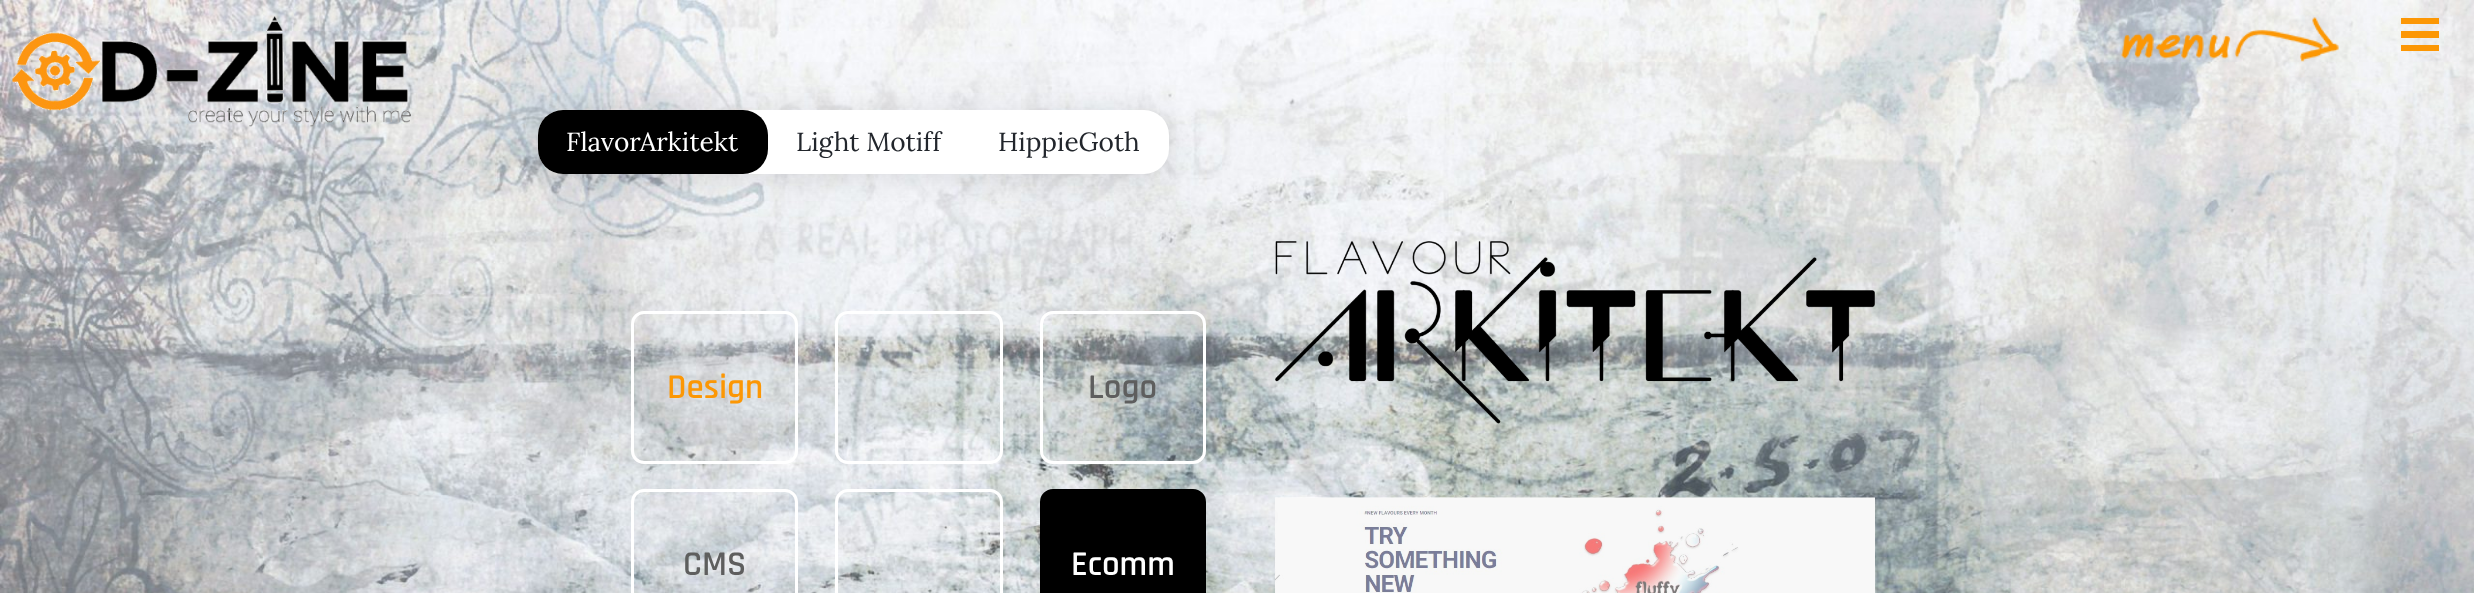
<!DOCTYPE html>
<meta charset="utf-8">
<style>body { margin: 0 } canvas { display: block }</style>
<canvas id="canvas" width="2474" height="593"></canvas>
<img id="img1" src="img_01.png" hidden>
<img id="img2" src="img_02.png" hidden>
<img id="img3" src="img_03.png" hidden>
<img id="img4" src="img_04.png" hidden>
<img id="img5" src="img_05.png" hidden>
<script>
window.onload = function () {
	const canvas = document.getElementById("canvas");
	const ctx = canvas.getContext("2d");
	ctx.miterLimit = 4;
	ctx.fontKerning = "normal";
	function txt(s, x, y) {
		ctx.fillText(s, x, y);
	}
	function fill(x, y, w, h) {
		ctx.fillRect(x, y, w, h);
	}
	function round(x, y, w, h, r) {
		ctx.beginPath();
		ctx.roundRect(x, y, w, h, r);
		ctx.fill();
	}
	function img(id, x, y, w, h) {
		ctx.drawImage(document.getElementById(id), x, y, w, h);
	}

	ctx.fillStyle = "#FFFFFF";
	fill(0, 0, 2474, 593);
	img("img1", 0, 0, 2474, 593);
	img("img2", 12, 16, 399, 111);
	img("img3", 2121, 17, 218, 45);
	ctx.fillStyle = "#FC9704";
	fill(2401, 18, 38, 6);
	fill(2401, 31, 38, 7);
	fill(2401, 45, 38, 6);
	ctx.fillStyle = "rgba(0, 0, 0, 0.1)";
	ctx.filter = "blur(15px)";
	ctx.beginPath();
	ctx.roundRect(538, 115, 631, 64, 25);
	ctx.fill();
	ctx.filter = "none";
	ctx.fillStyle = "#FFFFFF";
	round(538, 110, 631, 64, 25);
	ctx.fillStyle = "#000000";
	round(538, 110, 230, 64, 25);
	ctx.beginPath();
	ctx.roundRect(632.5, 312.5, 164, 150, 11.5);
	ctx.strokeStyle = "#FFFFFF";
	ctx.lineWidth = 3;
	ctx.stroke();
	ctx.beginPath();
	ctx.roundRect(836.5, 312.5, 165, 150, 11.5);
	ctx.stroke();
	ctx.beginPath();
	ctx.roundRect(1041.5, 312.5, 163, 150, 11.5);
	ctx.stroke();
	ctx.beginPath();
	ctx.roundRect(632.5, 490.5, 164, 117, 11.5);
	ctx.stroke();
	ctx.beginPath();
	ctx.roundRect(836.5, 490.5, 165, 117, 11.5);
	ctx.stroke();
	ctx.beginPath();
	ctx.roundRect(1041.5, 490.5, 163, 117, 11.5);
	ctx.fill();
	ctx.strokeStyle = "#000000";
	ctx.stroke();
	img("img4", 1275, 241, 600, 183);
	img("img5", 1275, 497, 600, 96);
	ctx.font = "26.25px Lora";
	ctx.fillStyle = "#FFFFFF";
	txt("FlavorArkitekt", 566, 151);
	ctx.fillStyle = "#22262C";
	txt("Light Motiff", 796, 151);
	txt("HippieGoth", 998, 151);
	ctx.font = "600 35px Rajdhani";
	ctx.fillStyle = "#FC9704";
	txt("Design", 667, 398);
	ctx.fillStyle = "#5E5E5E";
	txt("Logo", 1088, 398);
	txt("CMS", 683, 575);
	ctx.fillStyle = "#FFFFFF";
	txt("Ecomm", 1071, 575);
};
</script>
